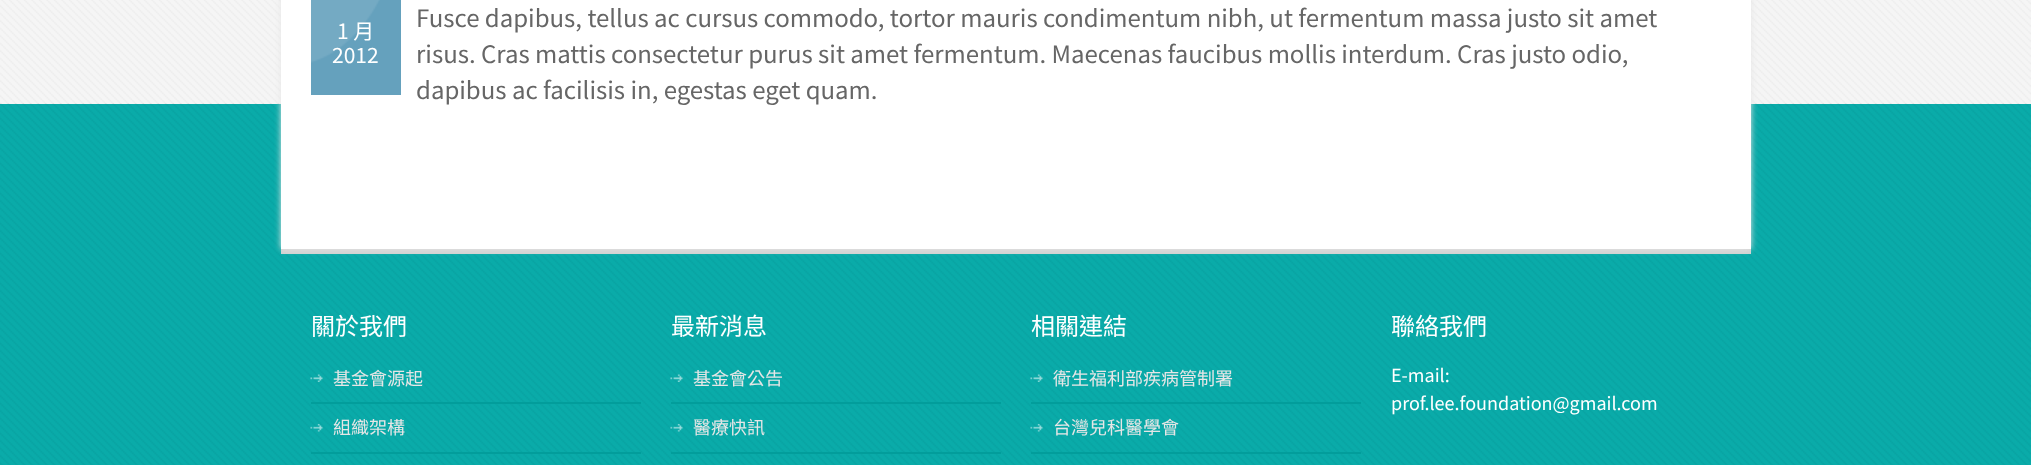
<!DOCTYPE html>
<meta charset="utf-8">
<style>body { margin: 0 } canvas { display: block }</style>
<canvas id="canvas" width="2031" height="465"></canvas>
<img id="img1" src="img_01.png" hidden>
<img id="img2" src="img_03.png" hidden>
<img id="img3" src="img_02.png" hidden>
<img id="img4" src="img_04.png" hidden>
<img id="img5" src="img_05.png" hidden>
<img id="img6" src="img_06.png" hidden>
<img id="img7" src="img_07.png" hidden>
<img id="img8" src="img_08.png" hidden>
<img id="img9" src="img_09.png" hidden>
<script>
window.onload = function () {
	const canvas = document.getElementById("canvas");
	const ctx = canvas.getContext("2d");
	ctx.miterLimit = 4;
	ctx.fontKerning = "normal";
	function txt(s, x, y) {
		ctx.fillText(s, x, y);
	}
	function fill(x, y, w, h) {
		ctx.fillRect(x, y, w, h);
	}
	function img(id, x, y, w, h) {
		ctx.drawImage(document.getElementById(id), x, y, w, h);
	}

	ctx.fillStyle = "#F5F5F5";
	fill(0, 0, 2031, 465);
	img("img1", 0, 0, 2031, 104);
	ctx.fillStyle = "#0AABA9";
	fill(0, 104, 2031, 361);
	img("img2", 0, 103, 2031, 362);
	ctx.fillStyle = "#D2D2D2";
	fill(281, 249, 1470, 5);
	ctx.fillStyle = "#E5E5E5";
	ctx.filter = "blur(3px)";
	ctx.beginPath();
	ctx.rect(281, -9, 1470, 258);
	ctx.fill();
	ctx.filter = "none";
	ctx.fillStyle = "#FFFFFF";
	fill(281, 0, 1470, 249);
	ctx.fillStyle = "#65A1BD";
	fill(311, 0, 90, 95);
	img("img3", 311, 0, 69, 63);
	img("img4", 310, 374, 13, 8);
	ctx.fillStyle = "#029D9B";
	fill(311, 402, 330, 2);
	img("img5", 310, 424, 13, 8);
	fill(311, 452, 330, 2);
	img("img6", 670, 374, 13, 8);
	fill(671, 402, 330, 2);
	img("img7", 670, 424, 13, 8);
	fill(671, 452, 330, 2);
	img("img8", 1030, 374, 13, 8);
	fill(1031, 402, 330, 2);
	img("img9", 1030, 424, 13, 8);
	fill(1031, 452, 330, 2);
	ctx.font = "21px Noto Sans TC";
	ctx.fillStyle = "#FFFFFF";
	txt("1 月", 337, 39);
	txt("2012", 332, 63);
	ctx.font = "24px Noto Sans TC";
	ctx.fillStyle = "#666666";
	txt("Fusce dapibus, tellus ac cursus commodo, tortor mauris condimentum nibh, ut fermentum massa justo sit amet", 416, 27);
	txt("risus. Cras mattis consectetur purus sit amet fermentum. Maecenas faucibus mollis interdum. Cras justo odio,", 416, 63);
	txt("dapibus ac facilisis in, egestas eget quam.", 416, 99);
	ctx.fillStyle = "#FFFFFF";
	txt("關於我們", 311, 335);
	ctx.font = "18px Noto Sans TC";
	ctx.fillStyle = "#E6E6E6";
	txt("基金會源起", 333, 385);
	txt("組織架構", 333, 434);
	ctx.font = "24px Noto Sans TC";
	ctx.fillStyle = "#FFFFFF";
	txt("最新消息", 671, 335);
	ctx.font = "18px Noto Sans TC";
	ctx.fillStyle = "#E6E6E6";
	txt("基金會公告", 693, 385);
	txt("醫療快訊", 693, 434);
	ctx.font = "24px Noto Sans TC";
	ctx.fillStyle = "#FFFFFF";
	txt("相關連結", 1031, 335);
	ctx.font = "18px Noto Sans TC";
	ctx.fillStyle = "#E6E6E6";
	txt("衛生福利部疾病管制署", 1053, 385);
	txt("台灣兒科醫學會", 1053, 434);
	ctx.font = "24px Noto Sans TC";
	ctx.fillStyle = "#FFFFFF";
	txt("聯絡我們", 1391, 335);
	ctx.font = "18px Noto Sans TC";
	txt("E-mail:", 1391, 382);
	txt("prof.lee.foundation@gmail.com", 1391, 410);
};
</script>
